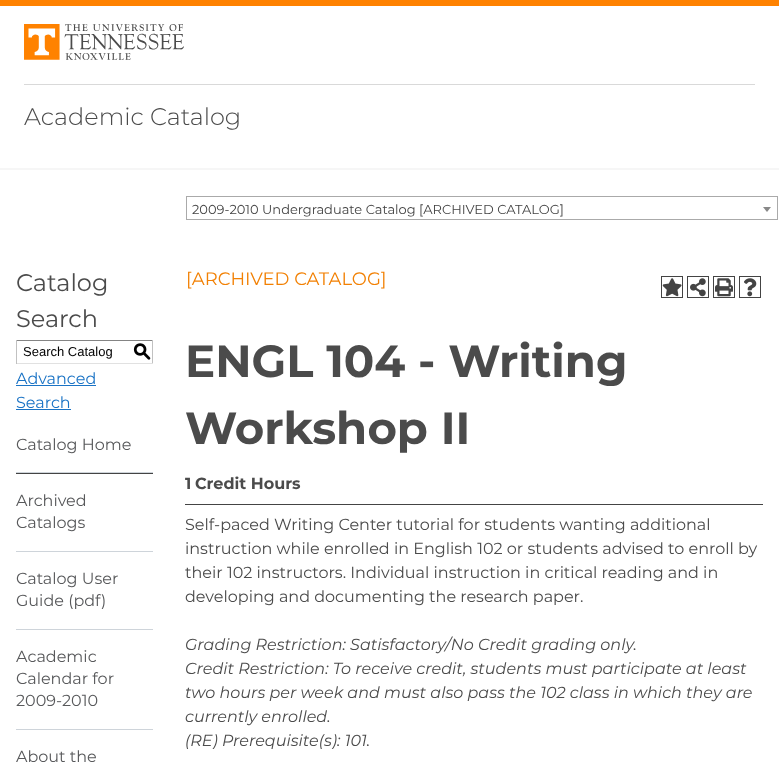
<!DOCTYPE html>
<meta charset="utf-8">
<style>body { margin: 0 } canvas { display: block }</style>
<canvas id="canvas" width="779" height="766"></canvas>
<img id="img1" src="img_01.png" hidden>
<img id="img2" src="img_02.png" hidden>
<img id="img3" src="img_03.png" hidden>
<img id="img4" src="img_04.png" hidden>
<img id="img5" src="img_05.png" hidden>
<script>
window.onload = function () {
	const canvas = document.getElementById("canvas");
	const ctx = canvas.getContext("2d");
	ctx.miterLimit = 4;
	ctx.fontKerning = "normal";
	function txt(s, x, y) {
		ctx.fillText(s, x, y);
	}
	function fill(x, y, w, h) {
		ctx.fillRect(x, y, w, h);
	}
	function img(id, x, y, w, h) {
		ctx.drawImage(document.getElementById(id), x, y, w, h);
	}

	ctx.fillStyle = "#FFFFFF";
	fill(0, 0, 779, 766);
	ctx.fillStyle = "#FF8200";
	fill(0, 0, 779, 6);
	img("img1", 24, 24, 160, 36);
	ctx.fillStyle = "#D9D9D9";
	fill(24, 84, 731, 1);
	ctx.fillStyle = "#F6F6F6";
	fill(0, 168, 779, 2);
	ctx.strokeStyle = "#AAAAAA";
	ctx.strokeRect(186.5, 196.5, 591, 23);
	ctx.fillStyle = "#888888";
	ctx.beginPath();
	ctx.moveTo(763, 207);
	ctx.lineTo(771, 207);
	ctx.lineTo(767, 212);
	ctx.closePath();
	ctx.fill();
	ctx.fillStyle = "#848484";
	fill(16, 340, 137, 1);
	ctx.fillStyle = "#C1C1C1";
	fill(152, 340, 1, 24);
	ctx.fillStyle = "#E1E1E1";
	fill(16, 363, 137, 1);
	ctx.fillStyle = "#C1C1C1";
	fill(16, 340, 1, 24);
	ctx.fillStyle = "#1A73C5";
	fill(16, 385, 80, 1);
	fill(16, 409, 55, 1);
	ctx.fillStyle = "#CED4DA";
	fill(16, 472, 137, 1);
	ctx.fillStyle = "#444444";
	fill(16, 473, 137, 1);
	ctx.fillStyle = "#CED4DA";
	fill(16, 551, 137, 1);
	fill(16, 629, 137, 1);
	fill(16, 729, 137, 1);
	ctx.strokeStyle = "#444444";
	ctx.strokeRect(661.5, 276.5, 21, 21);
	img("img2", 662, 278, 20, 19);
	ctx.strokeRect(687.5, 276.5, 21, 21);
	img("img3", 690, 278, 16, 19);
	ctx.strokeRect(713.5, 276.5, 21, 21);
	img("img4", 715, 278, 18, 19);
	ctx.strokeRect(739.5, 276.5, 21, 21);
	img("img5", 744, 278, 13, 19);
	ctx.fillStyle = "#444444";
	fill(185, 504, 578, 1);
	ctx.font = "300 24px Montserrat";
	ctx.fillStyle = "#4B4B4B";
	txt("Academic Catalog", 24, 125);
	ctx.font = "13px Montserrat";
	ctx.fillStyle = "#444444";
	txt("2009-2010 Undergraduate Catalog [ARCHIVED CATALOG]", 192, 214);
	ctx.font = "24px Montserrat";
	ctx.fillStyle = "#4B4B4B";
	txt("Catalog", 16, 291);
	txt("Search", 16, 327);
	ctx.font = "13px Liberation Sans";
	ctx.fillStyle = "#000000";
	txt("Search Catalog", 23, 356);
	ctx.font = "500 18px 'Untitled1'";
	txt("S", 133, 357);
	ctx.font = "16px Montserrat";
	ctx.fillStyle = "#1A73C5";
	txt("Advanced", 16, 384);
	txt("Search", 16, 408);
	ctx.fillStyle = "#58595B";
	txt("Catalog Home", 16, 450);
	txt("Archived", 16, 506);
	txt("Catalogs", 16, 528);
	txt("Catalog User", 16, 584);
	txt("Guide (pdf)", 16, 606);
	txt("Academic", 16, 662);
	txt("Calendar for", 16, 684);
	txt("2009-2010", 16, 706);
	txt("About the", 16, 762);
	ctx.font = "18px Montserrat";
	ctx.fillStyle = "#F28003";
	txt("[ARCHIVED CATALOG]", 186, 285);
	ctx.font = "bold 45px Montserrat";
	ctx.fillStyle = "#4B4B4B";
	txt("ENGL 104 - Writing", 185, 377);
	txt("Workshop II", 185, 444);
	ctx.font = "bold 16px Montserrat";
	txt("1", 185, 489);
	txt("Credit Hours", 195, 489);
	ctx.font = "16px Montserrat";
	txt("Self-paced Writing Center tutorial for students wanting additional", 185, 530);
	txt("instruction while enrolled in English 102 or students advised to enroll by", 185, 554);
	txt("their 102 instructors. Individual instruction in critical reading and in", 185, 578);
	txt("developing and documenting the research paper.", 185, 602);
	ctx.font = "italic 16px Montserrat";
	txt("Grading Restriction: Satisfactory/No Credit grading only.", 185, 650);
	txt("Credit Restriction: To receive credit, students must participate at least", 185, 674);
	txt("two hours per week and must also pass the 102 class in which they are", 185, 698);
	txt("currently enrolled.", 185, 722);
	txt("(RE) Prerequisite(s): 101.", 185, 746);
};
</script>
